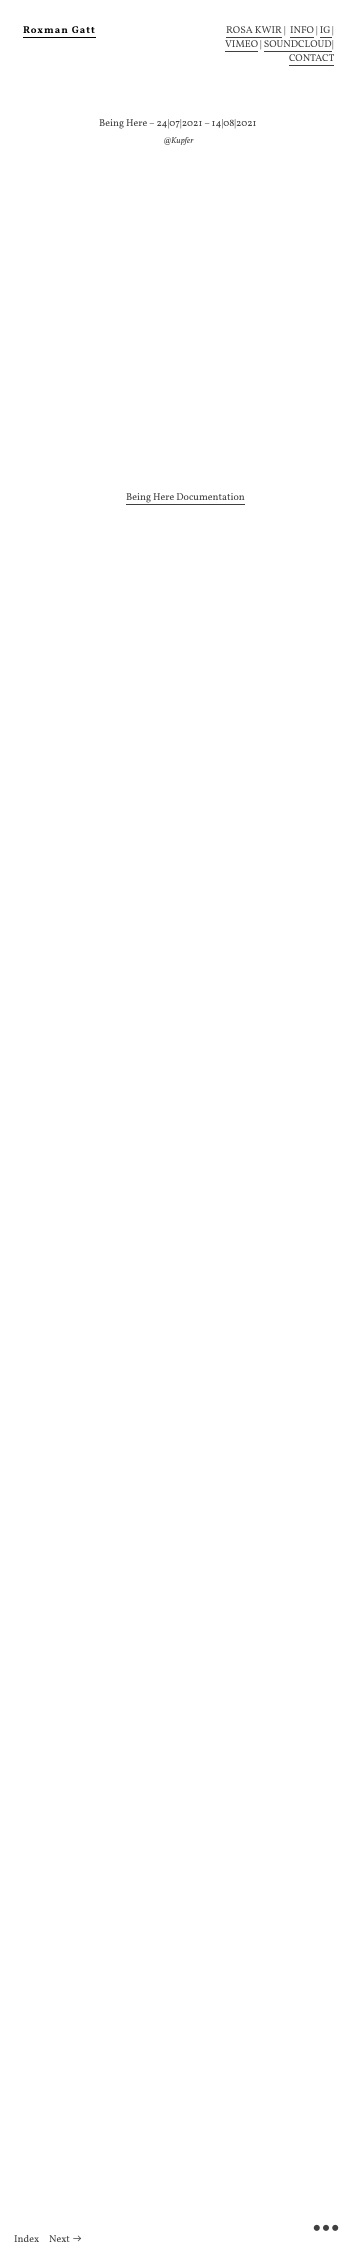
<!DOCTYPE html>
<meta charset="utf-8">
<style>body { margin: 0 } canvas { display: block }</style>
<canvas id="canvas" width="357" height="2260"></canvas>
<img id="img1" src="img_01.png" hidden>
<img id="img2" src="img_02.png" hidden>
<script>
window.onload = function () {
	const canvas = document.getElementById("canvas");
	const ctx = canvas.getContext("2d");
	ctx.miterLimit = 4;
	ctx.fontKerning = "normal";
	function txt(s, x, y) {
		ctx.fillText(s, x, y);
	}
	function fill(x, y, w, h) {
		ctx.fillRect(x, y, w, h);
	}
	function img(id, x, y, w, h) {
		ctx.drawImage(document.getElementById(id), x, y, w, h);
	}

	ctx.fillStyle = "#FFFFFF";
	fill(0, 0, 357, 2260);
	ctx.fillStyle = "#000000";
	fill(23, 37, 73, 1);
	ctx.fillStyle = "#404040";
	fill(226, 37, 56, 1);
	fill(290, 37, 24, 1);
	fill(320, 37, 12, 1);
	fill(225, 51, 33, 1);
	fill(264, 51, 68, 1);
	fill(289, 65, 45, 1);
	fill(126, 504, 119, 1);
	img("img1", 73, 2235, 9, 7);
	img("img2", 313, 2224, 26, 7);
	ctx.letterSpacing = "1px";
	ctx.font = "bold 10px Vollkorn";
	ctx.fillStyle = "#000000";
	txt("Roxman Gatt", 23, 33);
	ctx.letterSpacing = "0px";
	ctx.font = "10px Vollkorn";
	ctx.fillStyle = "#404040";
	txt("ROSA KWIR", 226, 33);
	txt("|", 284, 33);
	txt("INFO", 290, 33);
	txt("| IG", 316, 33);
	txt("|", 332, 33);
	txt("VIMEO", 225, 47);
	txt("| SOUNDCLOUD", 260, 47);
	txt("|", 332, 47);
	txt("CONTACT", 289, 61);
	txt("Being Here – 24|07|2021 – 14|08|2021", 99, 126);
	ctx.font = "italic 8.5px Vollkorn";
	txt("@Kupfer", 164, 143);
	ctx.font = "10px Vollkorn";
	txt("Being Here Documentation", 126, 500);
	txt("Index", 14, 2242);
	txt("Next", 49, 2242);
};
</script>
